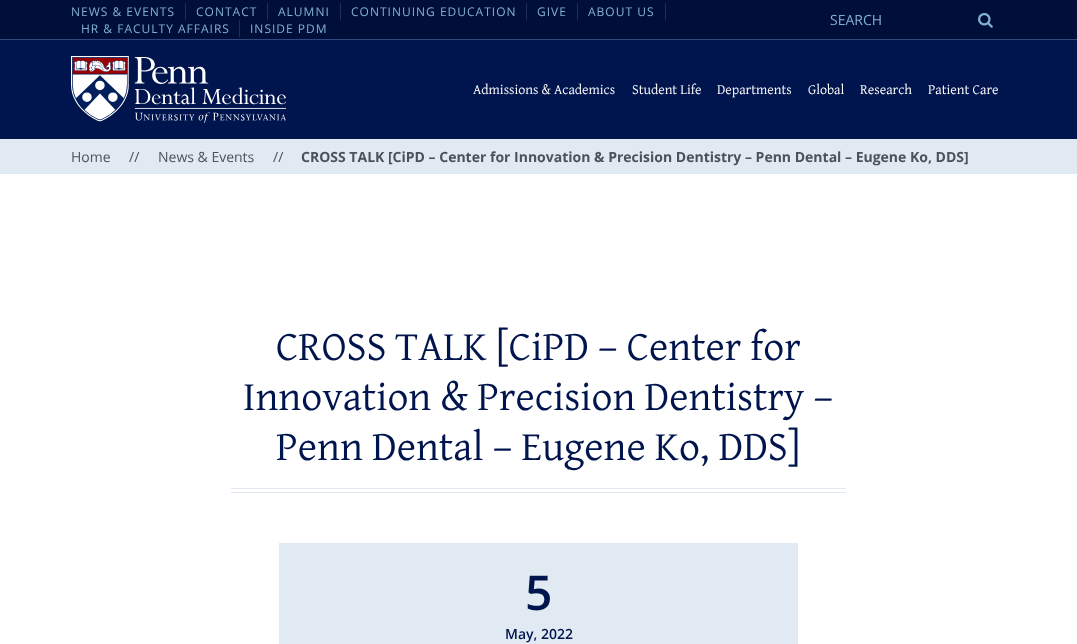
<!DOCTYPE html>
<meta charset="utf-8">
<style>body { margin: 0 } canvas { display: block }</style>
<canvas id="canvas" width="1077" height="644"></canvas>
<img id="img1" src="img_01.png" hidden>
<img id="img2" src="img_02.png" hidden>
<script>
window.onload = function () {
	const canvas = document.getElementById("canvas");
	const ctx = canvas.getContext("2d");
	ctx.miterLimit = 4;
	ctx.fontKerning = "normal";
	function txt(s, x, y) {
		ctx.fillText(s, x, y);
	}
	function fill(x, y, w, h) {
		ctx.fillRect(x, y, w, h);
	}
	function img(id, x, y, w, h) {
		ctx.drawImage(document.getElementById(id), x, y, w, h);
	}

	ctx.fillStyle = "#FFFFFF";
	fill(0, 0, 1077, 644);
	ctx.fillStyle = "#000F3A";
	fill(0, 0, 1077, 39);
	ctx.fillStyle = "#31497C";
	fill(0, 39, 1077, 1);
	ctx.fillStyle = "#1D2D57";
	fill(185, 3, 1, 17);
	fill(267, 3, 1, 17);
	fill(340, 3, 1, 17);
	fill(526, 3, 1, 17);
	fill(577, 3, 1, 17);
	fill(665, 3, 1, 17);
	fill(239, 20, 1, 17);
	img("img1", 978, 13, 15, 15);
	ctx.fillStyle = "#00144D";
	fill(0, 40, 1077, 99);
	img("img2", 71, 56, 215, 67);
	ctx.fillStyle = "#E1EAF2";
	fill(0, 139, 1077, 35);
	fill(231, 488, 615, 1);
	fill(231, 492, 615, 1);
	fill(279, 543, 519, 101);
	ctx.letterSpacing = "1px";
	ctx.font = "12px Open Sans";
	ctx.fillStyle = "#82AFD3";
	txt("NEWS & EVENTS", 71, 16);
	txt("CONTACT", 196, 16);
	txt("ALUMNI", 278, 16);
	txt("CONTINUING EDUCATION", 351, 16);
	txt("GIVE", 537, 16);
	txt("ABOUT US", 588, 16);
	txt("HR & FACULTY AFFAIRS", 81, 33);
	txt("INSIDE PDM", 250, 33);
	ctx.letterSpacing = "0px";
	ctx.font = "14px Open Sans";
	txt("SEARCH", 830, 25);
	ctx.font = "14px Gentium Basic";
	ctx.fillStyle = "#FFFFFF";
	txt("Admissions & Academics", 473, 94);
	txt("Student Life", 632, 94);
	txt("Departments", 717, 94);
	txt("Global", 808, 94);
	txt("Research", 860, 94);
	txt("Patient Care", 928, 94);
	ctx.font = "14px Open Sans";
	ctx.fillStyle = "#4A5359";
	txt("Home", 71, 162);
	txt("//", 129, 162);
	txt("News & Events", 158, 162);
	txt("//", 273, 162);
	ctx.font = "bold 14px Open Sans";
	txt("CROSS TALK [CiPD – Center for Innovation & Precision Dentistry – Penn Dental – Eugene Ko, DDS]", 301, 162);
	ctx.font = "41.6px Gentium Basic";
	ctx.fillStyle = "#00144D";
	txt("CROSS TALK [CiPD – Center for", 276, 360);
	txt("Innovation & Precision Dentistry –", 243, 410);
	txt("Penn Dental – Eugene Ko, DDS]", 276, 460);
	ctx.font = "600 48px Open Sans";
	txt("5", 525, 610);
	ctx.font = "600 14px Open Sans";
	txt("May, 2022", 505, 639);
};
</script>
